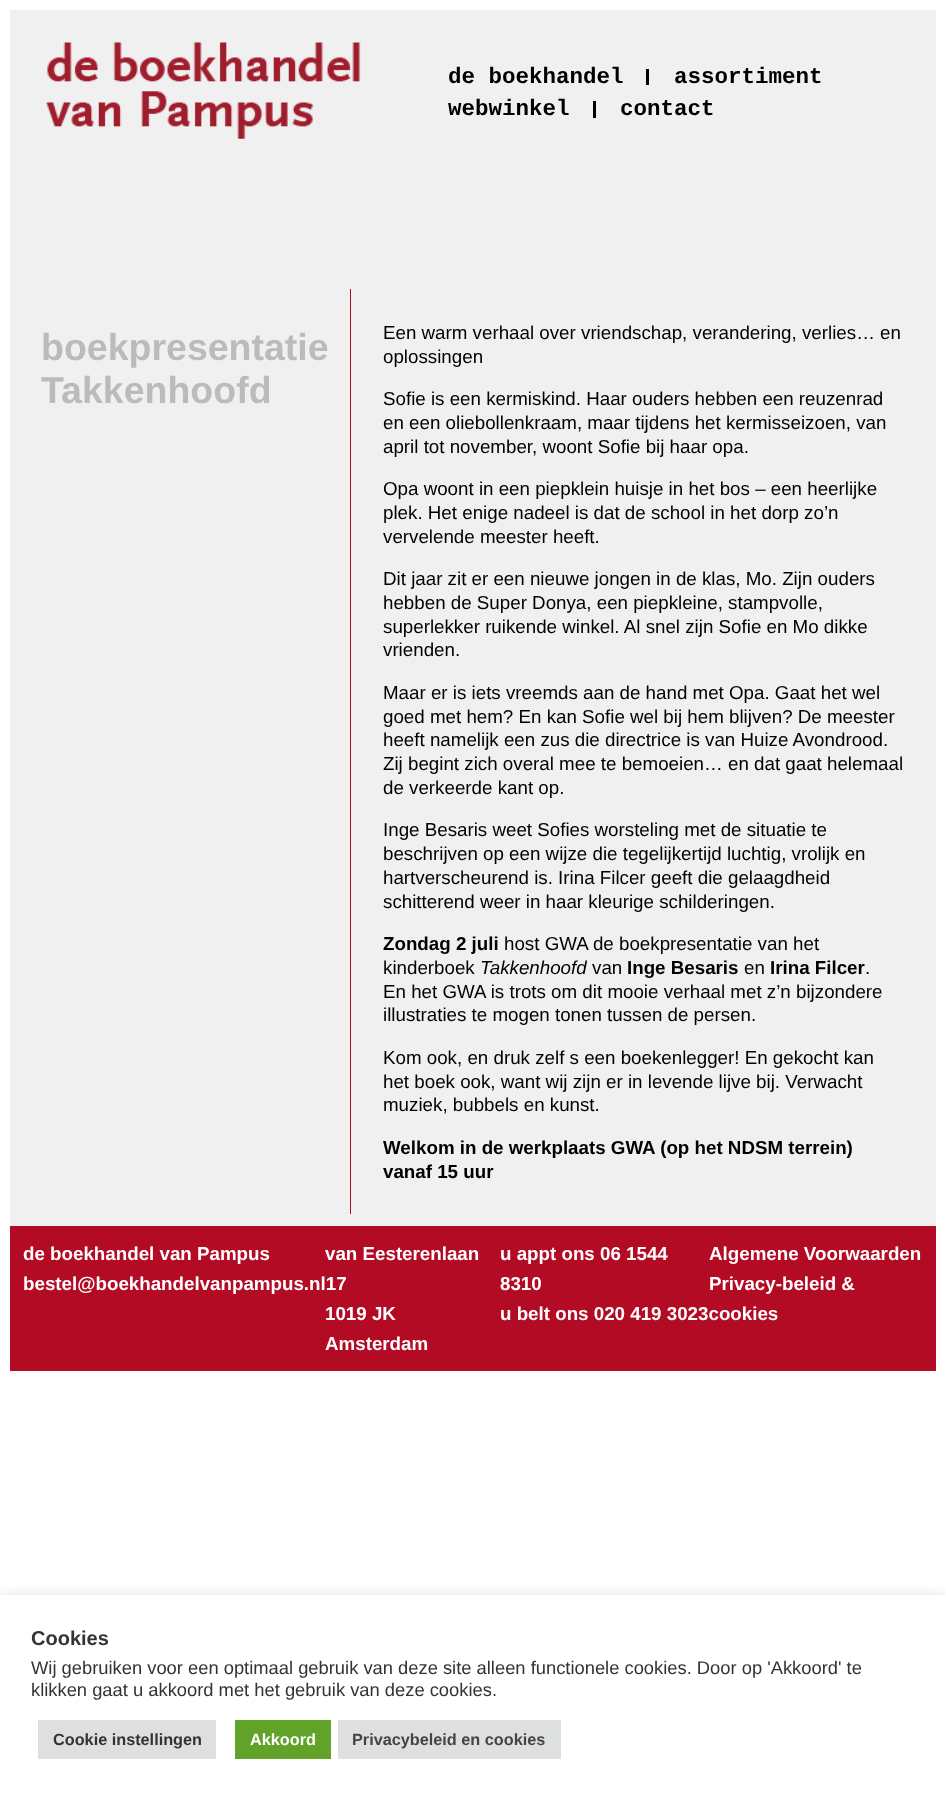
<!DOCTYPE html>
<meta charset="utf-8">
<style>body { margin: 0 } canvas { display: block }</style>
<canvas id="canvas" width="946" height="1796"></canvas>
<img id="img1" src="img_01.png" hidden>
<script>
window.onload = function () {
	const canvas = document.getElementById("canvas");
	const ctx = canvas.getContext("2d");
	ctx.miterLimit = 4;
	ctx.fontKerning = "normal";
	function txt(s, x, y) {
		ctx.fillText(s, x, y);
	}
	function fill(x, y, w, h) {
		ctx.fillRect(x, y, w, h);
	}
	function img(id, x, y, w, h) {
		ctx.drawImage(document.getElementById(id), x, y, w, h);
	}

	ctx.fillStyle = "#FFFFFF";
	fill(0, 0, 946, 1796);
	ctx.fillStyle = "#F0F0F0";
	fill(10, 10, 926, 1216);
	img("img1", 46, 42, 315, 97);
	ctx.fillStyle = "#000000";
	fill(646, 69, 3, 16);
	fill(593, 101, 3, 17);
	ctx.fillStyle = "#B40B25";
	fill(350, 289, 1, 925);
	fill(10, 1226, 926, 145);
	ctx.save();
	ctx.beginPath();
	ctx.rect(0, 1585, 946, 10);
	ctx.clip();
	ctx.fillStyle = "rgba(172, 171, 171, 0.3)";
	ctx.filter = "blur(6px)";
	ctx.beginPath();
	ctx.rect(0, 1594, 946, 201);
	ctx.fill();
	ctx.filter = "none";
	ctx.restore();
	ctx.fillStyle = "#DEDFE0";
	fill(38, 1720, 178, 39);
	ctx.fillStyle = "#61A229";
	fill(235, 1720, 96, 39);
	ctx.fillStyle = "#DEDFE0";
	fill(338, 1720, 223, 39);
	ctx.font = "bold 22.5px Liberation Mono";
	ctx.fillStyle = "#000000";
	txt("de boekhandel", 448, 83);
	txt("assortiment", 674, 83);
	txt("webwinkel", 448, 115);
	txt("contact", 620, 115);
	ctx.font = "bold 37.5px Liberation Sans";
	ctx.fillStyle = "#BBBBBB";
	txt("boekpresentatie", 41, 360);
	txt("Takkenhoofd", 41, 403);
	ctx.font = "18.75px Liberation Sans";
	ctx.fillStyle = "#000000";
	txt("Een warm verhaal over vriendschap, verandering, verlies… en", 383, 339);
	txt("oplossingen", 383, 363);
	txt("Sofie is een kermiskind. Haar ouders hebben een reuzenrad", 383, 405);
	txt("en een oliebollenkraam, maar tijdens het kermisseizoen, van", 383, 429);
	txt("april tot november, woont Sofie bij haar opa.", 383, 453);
	txt("Opa woont in een piepklein huisje in het bos – een heerlijke", 383, 495);
	txt("plek. Het enige nadeel is dat de school in het dorp zo’n", 383, 519);
	txt("vervelende meester heeft.", 383, 543);
	txt("Dit jaar zit er een nieuwe jongen in de klas, Mo. Zijn ouders", 383, 585);
	txt("hebben de Super Donya, een piepkleine, stampvolle,", 383, 609);
	txt("superlekker ruikende winkel. Al snel zijn Sofie en Mo dikke", 383, 633);
	txt("vrienden.", 383, 656);
	txt("Maar er is iets vreemds aan de hand met Opa. Gaat het wel", 383, 699);
	txt("goed met hem? En kan Sofie wel bij hem blijven? De meester", 383, 723);
	txt("heeft namelijk een zus die directrice is van Huize Avondrood.", 383, 746);
	txt("Zij begint zich overal mee te bemoeien… en dat gaat helemaal", 383, 770);
	txt("de verkeerde kant op.", 383, 794);
	txt("Inge Besaris weet Sofies worsteling met de situatie te", 383, 836);
	txt("beschrijven op een wijze die tegelijkertijd luchtig, vrolijk en", 383, 860);
	txt("hartverscheurend is. Irina Filcer geeft die gelaagdheid", 383, 884);
	txt("schitterend weer in haar kleurige schilderingen.", 383, 908);
	ctx.font = "bold 18.75px Liberation Sans";
	txt("Zondag 2 juli", 383, 950);
	ctx.font = "18.75px Liberation Sans";
	txt("host GWA de boekpresentatie van het", 504, 950);
	txt("kinderboek", 383, 974);
	ctx.font = "italic 18.75px Liberation Sans";
	txt("Takkenhoofd", 480, 974);
	ctx.font = "18.75px Liberation Sans";
	txt("van", 592, 974);
	ctx.font = "bold 18.75px Liberation Sans";
	txt("Inge Besaris", 627, 974);
	ctx.font = "18.75px Liberation Sans";
	txt("en", 744, 974);
	ctx.font = "bold 18.75px Liberation Sans";
	txt("Irina Filcer", 770, 974);
	ctx.font = "18.75px Liberation Sans";
	txt(".", 865, 974);
	txt("En het GWA is trots om dit mooie verhaal met z’n bijzondere", 383, 998);
	txt("illustraties te mogen tonen tussen de persen.", 383, 1021);
	txt("Kom ook, en druk zelf s een boekenlegger! En gekocht kan", 383, 1064);
	txt("het boek ook, want wij zijn er in levende lijve bij. Verwacht", 383, 1088);
	txt("muziek, bubbels en kunst.", 383, 1111);
	ctx.font = "bold 18.75px Liberation Sans";
	txt("Welkom in de werkplaats GWA (op het NDSM terrein)", 383, 1154);
	txt("vanaf 15 uur", 383, 1178);
	ctx.fillStyle = "#FFFFFF";
	txt("de boekhandel van Pampus", 23, 1260);
	txt("bestel@boekhandelvanpampus.nl17", 23, 1290);
	txt("van Eesterenlaan", 325, 1260);
	txt("1019 JK", 325, 1320);
	txt("Amsterdam", 325, 1350);
	txt("u appt ons 06 1544", 500, 1260);
	txt("8310", 500, 1290);
	txt("u belt ons 020 419 3023cookies", 500, 1320);
	txt("Algemene Voorwaarden", 709, 1260);
	txt("Privacy-beleid &", 709, 1290);
	ctx.font = "bold 20px Liberation Sans";
	ctx.fillStyle = "#333333";
	txt("Cookies", 31, 1645);
	ctx.font = "18.35px Liberation Sans";
	txt("Wij gebruiken voor een optimaal gebruik van deze site alleen functionele cookies. Door op 'Akkoord' te", 31, 1674);
	txt("klikken gaat u akkoord met het gebruik van deze cookies.", 31, 1696);
	ctx.font = "bold 16.25px Liberation Sans";
	txt("Cookie instellingen", 53, 1745);
	ctx.fillStyle = "#FFFFFF";
	txt("Akkoord", 250, 1745);
	ctx.fillStyle = "#444444";
	txt("Privacybeleid en cookies", 352, 1745);
};
</script>
